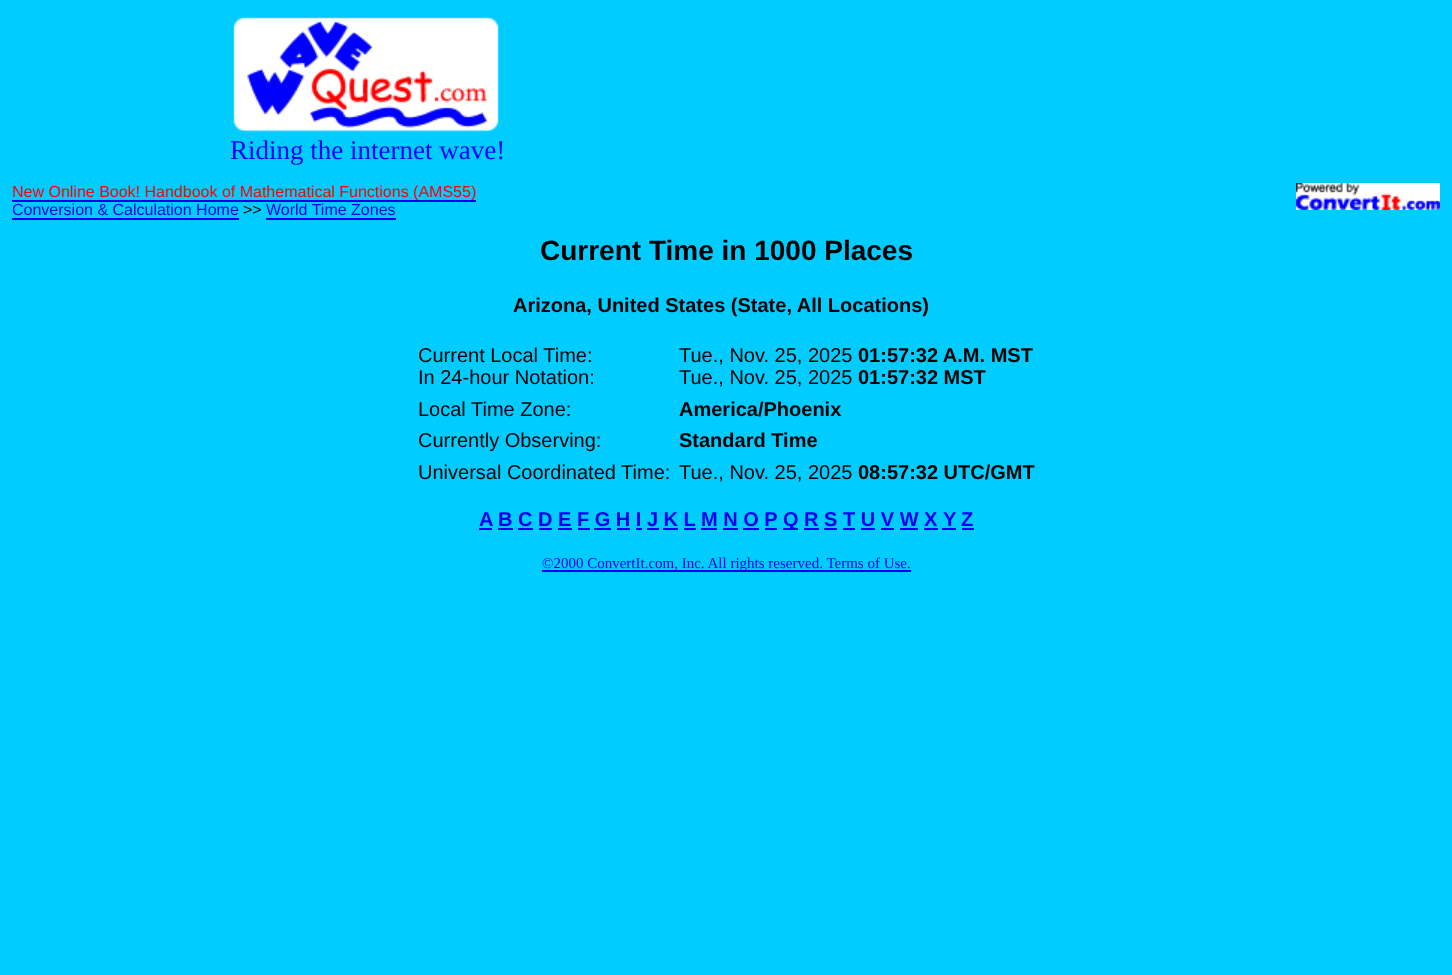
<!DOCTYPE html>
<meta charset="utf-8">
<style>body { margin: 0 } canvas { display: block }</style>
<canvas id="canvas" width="1452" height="975"></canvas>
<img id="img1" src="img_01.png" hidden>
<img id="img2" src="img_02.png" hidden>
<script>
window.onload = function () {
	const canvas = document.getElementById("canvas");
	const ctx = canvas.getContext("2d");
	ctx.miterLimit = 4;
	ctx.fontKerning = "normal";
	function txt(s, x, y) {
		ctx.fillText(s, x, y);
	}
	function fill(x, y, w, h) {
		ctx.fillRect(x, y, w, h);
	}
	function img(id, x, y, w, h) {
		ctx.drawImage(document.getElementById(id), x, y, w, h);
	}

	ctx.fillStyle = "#00CCFF";
	fill(0, 0, 1452, 975);
	img("img1", 233, 17, 266, 116);
	ctx.fillStyle = "#0000EE";
	fill(12, 200, 464, 2);
	img("img2", 1296, 183, 144, 27);
	fill(12, 218, 227, 2);
	fill(266, 218, 130, 2);
	fill(479, 528, 13, 2);
	fill(498, 528, 15, 2);
	fill(701, 528, 16, 2);
	fill(783, 528, 15, 2);
	fill(942, 528, 14, 2);
	fill(962, 528, 12, 2);
	fill(518, 528, 15, 2);
	fill(539, 528, 13, 2);
	fill(558, 528, 14, 2);
	fill(578, 528, 12, 2);
	fill(594, 528, 17, 2);
	fill(617, 528, 13, 2);
	fill(636, 528, 6, 2);
	fill(647, 528, 12, 2);
	fill(663, 528, 15, 2);
	fill(684, 528, 12, 2);
	fill(723, 528, 15, 2);
	fill(743, 528, 16, 2);
	fill(765, 528, 12, 2);
	fill(804, 528, 15, 2);
	fill(824, 528, 13, 2);
	fill(843, 528, 12, 2);
	fill(861, 528, 14, 2);
	fill(881, 528, 13, 2);
	fill(900, 528, 18, 2);
	fill(924, 528, 14, 2);
	fill(542, 570, 369, 2);
	ctx.font = "27px Liberation Serif";
	ctx.fillStyle = "#0000FF";
	txt("Riding the internet wave!", 230, 159);
	ctx.font = "16px Liberation Sans";
	ctx.fillStyle = "#FF0000";
	txt("New Online Book! Handbook of Mathematical Functions (AMS55)", 12, 197);
	ctx.fillStyle = "#0000EE";
	txt("Conversion & Calculation Home", 12, 215);
	ctx.fillStyle = "#000000";
	txt(">>", 243, 215);
	ctx.fillStyle = "#0000EE";
	txt("World Time Zones", 266, 215);
	ctx.font = "bold 28px Liberation Sans";
	ctx.fillStyle = "#000000";
	txt("Current Time in 1000 Places", 540, 260);
	ctx.font = "bold 20px Liberation Sans";
	txt("Arizona, United States (State, All Locations)", 513, 312);
	ctx.font = "20px Liberation Sans";
	txt("Current Local Time:", 418, 362);
	txt("In 24-hour Notation:", 418, 384);
	txt("Tue., Nov. 25, 2025", 679, 362);
	ctx.font = "bold 20px Liberation Sans";
	txt("01:57:32 A.M. MST", 858, 362);
	ctx.font = "20px Liberation Sans";
	txt("Tue., Nov. 25, 2025", 679, 384);
	ctx.font = "bold 20px Liberation Sans";
	txt("01:57:32 MST", 858, 384);
	ctx.font = "20px Liberation Sans";
	txt("Local Time Zone:", 418, 416);
	ctx.font = "bold 20px Liberation Sans";
	txt("America/Phoenix", 679, 416);
	ctx.font = "20px Liberation Sans";
	txt("Currently Observing:", 418, 447);
	ctx.font = "bold 20px Liberation Sans";
	txt("Standard Time", 679, 447);
	ctx.font = "20px Liberation Sans";
	txt("Universal Coordinated Time:", 418, 479);
	txt("Tue., Nov. 25, 2025", 679, 479);
	ctx.font = "bold 20px Liberation Sans";
	txt("08:57:32 UTC/GMT", 858, 479);
	ctx.fillStyle = "#0000EE";
	txt("A", 479, 526);
	txt("B C D E F G H I J K L", 498, 526);
	txt("M N O P", 701, 526);
	txt("Q R S T U V W X", 783, 526);
	txt("Y", 943, 526);
	txt("Z", 961, 526);
	ctx.font = "15px Liberation Serif";
	txt("©2000 ConvertIt.com, Inc. All rights reserved. Terms of Use.", 542, 568);
};
</script>
